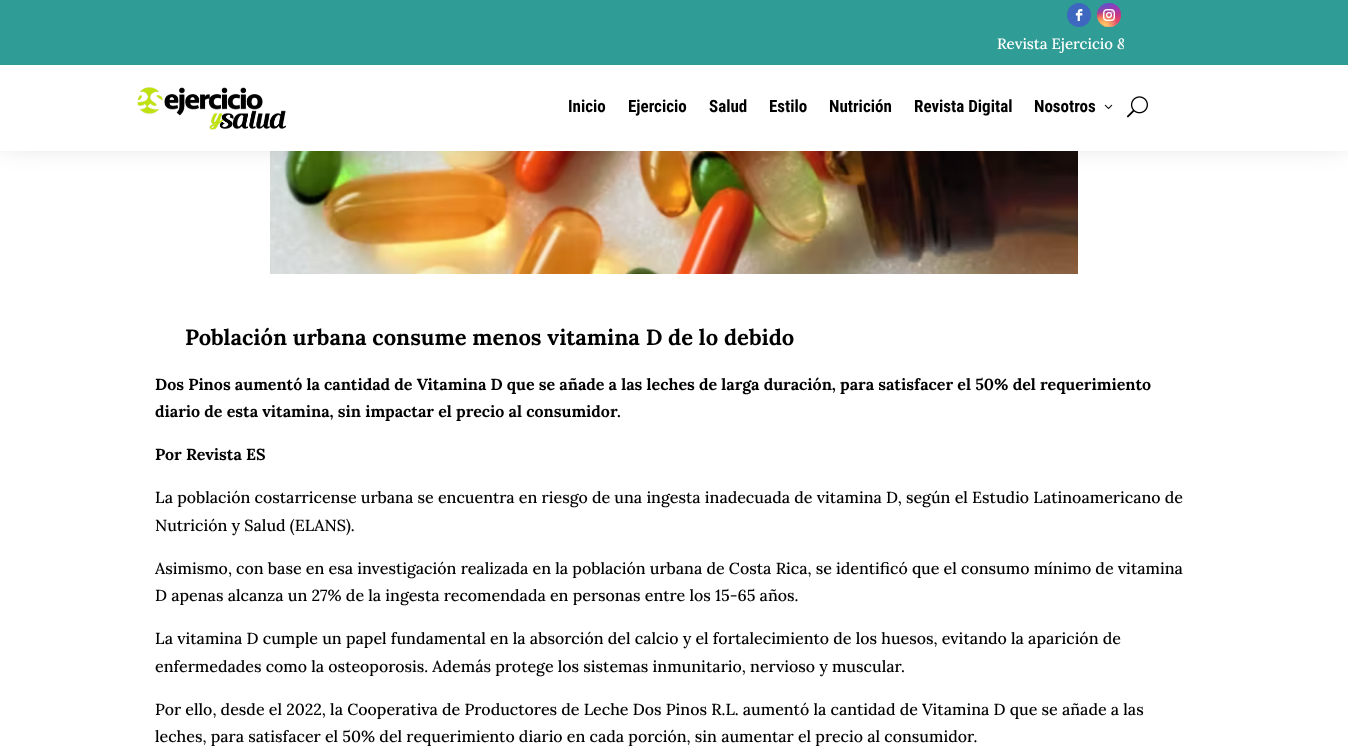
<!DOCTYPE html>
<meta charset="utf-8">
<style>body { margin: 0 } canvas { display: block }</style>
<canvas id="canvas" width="1348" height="753"></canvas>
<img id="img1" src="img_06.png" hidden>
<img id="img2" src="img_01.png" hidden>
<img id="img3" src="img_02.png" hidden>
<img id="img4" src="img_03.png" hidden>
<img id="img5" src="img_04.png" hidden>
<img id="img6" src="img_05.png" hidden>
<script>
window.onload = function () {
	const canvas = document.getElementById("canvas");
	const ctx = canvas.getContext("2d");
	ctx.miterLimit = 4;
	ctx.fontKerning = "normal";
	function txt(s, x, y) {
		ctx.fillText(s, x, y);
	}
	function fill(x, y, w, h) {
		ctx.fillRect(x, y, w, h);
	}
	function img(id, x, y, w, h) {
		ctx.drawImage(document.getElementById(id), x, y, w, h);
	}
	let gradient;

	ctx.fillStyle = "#FFFFFF";
	fill(0, 0, 1348, 753);
	img("img1", 270, 151, 808, 123);
	ctx.fillStyle = "rgba(0, 0, 0, 0.3)";
	ctx.filter = "blur(16.5px)";
	ctx.beginPath();
	ctx.rect(0, -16, 1348, 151);
	ctx.fill();
	ctx.filter = "none";
	ctx.fillStyle = "#FFFFFF";
	fill(0, 65, 1348, 86);
	ctx.fillStyle = "#2F9C95";
	fill(0, 0, 1348, 65);
	ctx.fillStyle = "#3E68C0";
	ctx.beginPath();
	ctx.arc(1079, 15, 12, 0, Math.PI * 2);
	ctx.fill();
	img("img2", 1075, 9, 8, 12);
	gradient = ctx.createLinearGradient(1109, 3, 1109, 27);
	gradient.addColorStop(0, "#6559CA");
	gradient.addColorStop(0.3, "#BC318F");
	gradient.addColorStop(0.5, "#E33F5F");
	gradient.addColorStop(0.7, "#F77638");
	gradient.addColorStop(1, "#FEC66D");
	ctx.fillStyle = gradient;
	ctx.beginPath();
	ctx.arc(1109, 15, 12, 0, Math.PI * 2);
	ctx.fill();
	gradient = ctx.createRadialGradient(1121, 27, 0, 1121, 27, 34);
	gradient.addColorStop(0, "#D9317A");
	gradient.addColorStop(1, "rgba(217, 49, 122, 0)");
	ctx.fillStyle = gradient;
	ctx.beginPath();
	ctx.arc(1109, 15, 12, 0, Math.PI * 2);
	ctx.fill();
	gradient = ctx.createRadialGradient(1111, -0.88, 0, 1111, -0.88, 20);
	gradient.addColorStop(0, "#893DC2");
	gradient.addColorStop(0.5, "rgba(137, 61, 194, 0)");
	ctx.fillStyle = gradient;
	ctx.beginPath();
	ctx.arc(1109, 15, 12, 0, Math.PI * 2);
	ctx.save();
	ctx.clip();
	ctx.scale(1, 41 / 20);
	ctx.fillRect(0, 0, 1348, 368);
	ctx.restore();
	gradient = ctx.createRadialGradient(1121, 3, 0, 1121, 3, 34);
	gradient.addColorStop(0, "#893DC2");
	gradient.addColorStop(0.5, "rgba(137, 61, 194, 0)");
	ctx.fillStyle = gradient;
	ctx.beginPath();
	ctx.arc(1109, 15, 12, 0, Math.PI * 2);
	ctx.fill();
	gradient = ctx.createRadialGradient(1102, -4.76, 0, 1102, -4.76, 27);
	gradient.addColorStop(0, "#5258CF");
	gradient.addColorStop(0.5, "rgba(82, 88, 207, 0)");
	ctx.fillStyle = gradient;
	ctx.beginPath();
	ctx.arc(1109, 15, 12, 0, Math.PI * 2);
	ctx.save();
	ctx.clip();
	ctx.scale(1, 51 / 27);
	ctx.fillRect(0, 0, 1348, 399);
	ctx.restore();
	gradient = ctx.createRadialGradient(1097, -2.43, 0, 1097, -2.43, 34);
	gradient.addColorStop(0, "#5258CF");
	gradient.addColorStop(0.5, "rgba(82, 88, 207, 0)");
	ctx.fillStyle = gradient;
	ctx.beginPath();
	ctx.arc(1109, 15, 12, 0, Math.PI * 2);
	ctx.save();
	ctx.clip();
	ctx.scale(1, 42 / 34);
	ctx.fillRect(0, 0, 1348, 610);
	ctx.restore();
	gradient = ctx.createRadialGradient(1097, 37, 0, 1097, 37, 41);
	gradient.addColorStop(0, "#FEC564");
	gradient.addColorStop(0.5, "rgba(254, 197, 100, 0)");
	ctx.fillStyle = gradient;
	ctx.beginPath();
	ctx.arc(1109, 15, 12, 0, Math.PI * 2);
	ctx.fill();
	gradient = ctx.createRadialGradient(1105, 25, 0, 1105, 25, 27);
	gradient.addColorStop(0, "#FEC564");
	gradient.addColorStop(0.5, "rgba(254, 197, 100, 0)");
	ctx.fillStyle = gradient;
	ctx.beginPath();
	ctx.arc(1109, 15, 12, 0, Math.PI * 2);
	ctx.fill();
	img("img3", 1103, 9, 12, 12);
	img("img4", 137, 87, 150, 43);
	img("img5", 1104, 104, 9, 5);
	img("img6", 1127, 96, 21, 22);
	ctx.save();
	ctx.beginPath();
	ctx.rect(224, 30, 900, 27);
	ctx.clip();
	ctx.font = "500 15px Lora";
	ctx.fillStyle = "#FFFFFF";
	txt("Revista Ejercicio &", 997, 49);
	ctx.restore();
	ctx.font = "bold 17px Roboto Condensed";
	ctx.fillStyle = "#000000";
	txt("Inicio", 568, 112);
	txt("Ejercicio", 628, 112);
	txt("Salud", 709, 112);
	txt("Estilo", 769, 112);
	txt("Nutrición", 829, 112);
	txt("Revista Digital", 914, 112);
	txt("Nosotros", 1034, 112);
	ctx.font = "bold 22px Lora";
	txt("Población urbana consume menos vitamina D de lo debido", 185, 345);
	ctx.font = "bold 16px Lora";
	txt("Dos Pinos aumentó la cantidad de Vitamina D que se añade a las leches de larga duración, para satisfacer el 50% del requerimiento", 155, 390);
	txt("diario de esta vitamina, sin impactar el precio al consumidor.", 155, 417);
	txt("Por Revista ES", 155, 460);
	ctx.font = "500 16px Lora";
	txt("La población costarricense urbana se encuentra en riesgo de una ingesta inadecuada de vitamina D, según el Estudio Latinoamericano de", 155, 503);
	txt("Nutrición y Salud (ELANS).", 155, 531);
	txt("Asimismo, con base en esa investigación realizada en la población urbana de Costa Rica, se identificó que el consumo mínimo de vitamina", 155, 574);
	txt("D apenas alcanza un 27% de la ingesta recomendada en personas entre los 15-65 años.", 155, 601);
	txt("La vitamina D cumple un papel fundamental en la absorción del calcio y el fortalecimiento de los huesos, evitando la aparición de", 155, 644);
	txt("enfermedades como la osteoporosis. Además protege los sistemas inmunitario, nervioso y muscular.", 155, 672);
	txt("Por ello, desde el 2022, la Cooperativa de Productores de Leche Dos Pinos R.L. aumentó la cantidad de Vitamina D que se añade a las", 155, 715);
	txt("leches, para satisfacer el 50% del requerimiento diario en cada porción, sin aumentar el precio al consumidor.", 155, 742);
};
</script>
